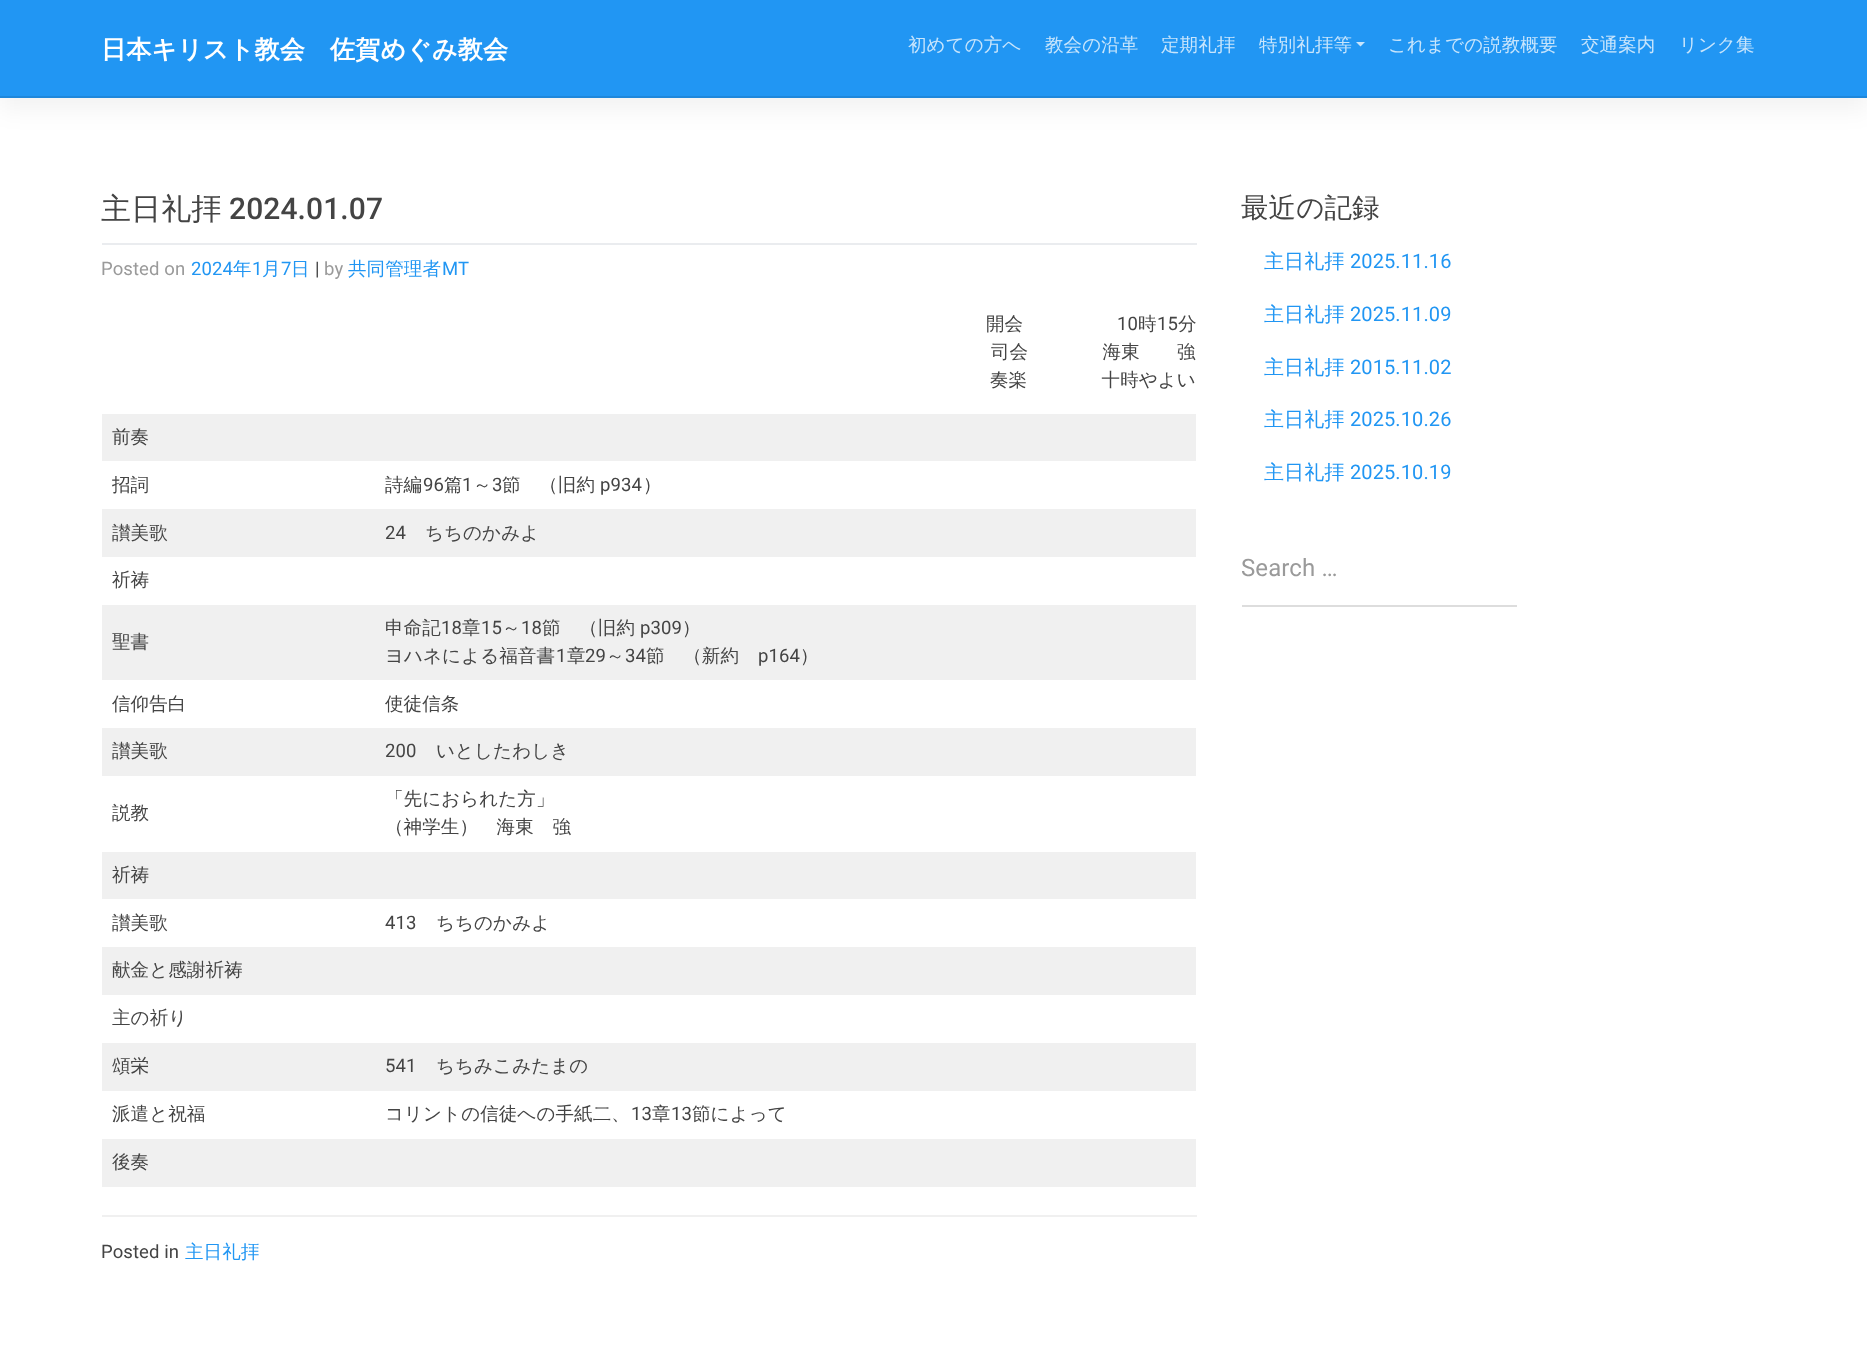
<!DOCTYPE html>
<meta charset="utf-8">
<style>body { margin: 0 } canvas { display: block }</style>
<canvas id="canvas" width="1867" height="1361"></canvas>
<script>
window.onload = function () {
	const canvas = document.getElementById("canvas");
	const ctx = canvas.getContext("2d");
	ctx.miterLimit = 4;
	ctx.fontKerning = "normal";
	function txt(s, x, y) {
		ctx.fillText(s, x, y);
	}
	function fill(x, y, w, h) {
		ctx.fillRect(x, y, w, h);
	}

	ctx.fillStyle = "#FFFFFF";
	fill(0, 0, 1867, 1361);
	ctx.fillStyle = "rgba(0, 0, 0, 0.05)";
	ctx.filter = "blur(11.5px)";
	ctx.beginPath();
	ctx.rect(0, 6, 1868, 104);
	ctx.fill();
	ctx.filter = "none";
	ctx.fillStyle = "#2196F3";
	fill(0, 0, 1867, 96);
	ctx.fillStyle = "#1E87DB";
	fill(0, 96, 1867, 2);
	ctx.fillStyle = "#C8E5FC";
	ctx.beginPath();
	ctx.moveTo(1356, 42);
	ctx.lineTo(1365, 42);
	ctx.lineTo(1360.5, 46.5);
	ctx.closePath();
	ctx.fill();
	ctx.fillStyle = "#EAECEF";
	fill(102, 243, 1095, 2);
	ctx.fillStyle = "#F0F0F0";
	fill(102, 1215, 1095, 2);
	fill(102, 414, 1094, 47);
	fill(102, 509, 1094, 48);
	fill(102, 605, 1094, 75);
	fill(102, 728, 1094, 48);
	fill(102, 852, 1094, 47);
	fill(102, 947, 1094, 48);
	fill(102, 1043, 1094, 48);
	fill(102, 1139, 1094, 48);
	ctx.fillStyle = "#DDDDDD";
	fill(1242, 605, 275, 2);
	ctx.letterSpacing = "0.1px";
	ctx.font = "bold 25.1px WenQuanYi Zen Hei";
	ctx.fillStyle = "#FFFFFF";
	txt("日本キリスト教会　佐賀めぐみ教会", 101, 58);
	ctx.font = "500 18.5px WenQuanYi Zen Hei";
	ctx.fillStyle = "#C8E5FC";
	txt("初めての方へ", 908, 51);
	txt("教会の沿革", 1045, 51);
	txt("定期礼拝", 1161, 51);
	txt("特別礼拝等", 1259, 51);
	txt("これまでの説教概要", 1388, 51);
	txt("交通案内", 1581, 51);
	txt("リンク集", 1679, 51);
	ctx.font = "500 30px WenQuanYi Zen Hei";
	ctx.fillStyle = "#444444";
	txt("主日礼拝", 101, 219);
	ctx.font = "500 30px Roboto";
	txt("2024.01.07", 229, 219);
	ctx.font = "18.5px Roboto";
	ctx.fillStyle = "#9A9A9A";
	txt("Posted on", 101, 275);
	ctx.fillStyle = "#2196F3";
	txt("2024", 191, 275);
	ctx.font = "500 18.5px WenQuanYi Zen Hei";
	txt("年", 233, 275);
	ctx.font = "18.5px Roboto";
	txt("1", 252, 275);
	ctx.font = "500 18.5px WenQuanYi Zen Hei";
	txt("月", 262, 275);
	ctx.font = "18.5px Roboto";
	txt("7", 281, 275);
	ctx.font = "500 18.5px WenQuanYi Zen Hei";
	txt("日", 291, 275);
	ctx.font = "18.5px Roboto";
	ctx.fillStyle = "#444444";
	txt("|", 315, 275);
	ctx.fillStyle = "#9A9A9A";
	txt("by", 324, 275);
	ctx.font = "500 18.5px WenQuanYi Zen Hei";
	ctx.fillStyle = "#2196F3";
	txt("共同管理者", 348, 275);
	ctx.font = "18.5px Roboto";
	txt("MT", 442, 275);
	ctx.font = "500 18.5px WenQuanYi Zen Hei";
	ctx.fillStyle = "#444444";
	txt("開会", 986, 330);
	ctx.font = "18.5px Roboto";
	txt("10", 1117, 330);
	ctx.font = "500 18.5px WenQuanYi Zen Hei";
	txt("時", 1138, 330);
	ctx.font = "18.5px Roboto";
	txt("15", 1157, 330);
	ctx.font = "500 18.5px WenQuanYi Zen Hei";
	txt("分", 1178, 330);
	txt("司会　　　　海東　　強", 991, 358);
	txt("奏楽　　　　十時やよい", 990, 386);
	txt("前奏", 112, 443);
	txt("招詞", 112, 491);
	txt("詩編", 385, 491);
	ctx.font = "18.5px Roboto";
	txt("96", 423, 491);
	ctx.font = "500 18.5px WenQuanYi Zen Hei";
	txt("篇", 444, 491);
	ctx.font = "18.5px Roboto";
	txt("1", 462, 491);
	ctx.font = "500 18.5px WenQuanYi Zen Hei";
	txt("～", 473, 491);
	ctx.font = "18.5px Roboto";
	txt("3", 492, 491);
	ctx.font = "500 18.5px WenQuanYi Zen Hei";
	txt("節　（旧約", 502, 491);
	ctx.font = "18.5px Roboto";
	txt("p934", 600, 491);
	ctx.font = "500 18.5px WenQuanYi Zen Hei";
	txt("）", 643, 491);
	txt("讃美歌", 112, 539);
	ctx.font = "18.5px Roboto";
	txt("24", 385, 539);
	ctx.font = "500 18.5px WenQuanYi Zen Hei";
	txt("ちちのかみよ", 425, 539);
	txt("祈祷", 112, 586);
	txt("聖書", 112, 648);
	txt("申命記", 385, 634);
	ctx.font = "18.5px Roboto";
	txt("18", 441, 634);
	ctx.font = "500 18.5px WenQuanYi Zen Hei";
	txt("章", 462, 634);
	ctx.font = "18.5px Roboto";
	txt("15", 481, 634);
	ctx.font = "500 18.5px WenQuanYi Zen Hei";
	txt("～", 502, 634);
	ctx.font = "18.5px Roboto";
	txt("18", 521, 634);
	ctx.font = "500 18.5px WenQuanYi Zen Hei";
	txt("節　（旧約", 542, 634);
	ctx.font = "18.5px Roboto";
	txt("p309", 640, 634);
	ctx.font = "500 18.5px WenQuanYi Zen Hei";
	txt("）", 682, 634);
	txt("ヨハネによる福音書", 385, 662);
	ctx.font = "18.5px Roboto";
	txt("1", 556, 662);
	ctx.font = "500 18.5px WenQuanYi Zen Hei";
	txt("章", 567, 662);
	ctx.font = "18.5px Roboto";
	txt("29", 585, 662);
	ctx.font = "500 18.5px WenQuanYi Zen Hei";
	txt("～", 606, 662);
	ctx.font = "18.5px Roboto";
	txt("34", 625, 662);
	ctx.font = "500 18.5px WenQuanYi Zen Hei";
	txt("節　（新約", 646, 662);
	ctx.font = "18.5px Roboto";
	txt("p164", 758, 662);
	ctx.font = "500 18.5px WenQuanYi Zen Hei";
	txt("）", 800, 662);
	txt("信仰告白", 112, 710);
	txt("使徒信条", 385, 710);
	txt("讃美歌", 112, 757);
	ctx.font = "18.5px Roboto";
	txt("200", 385, 757);
	ctx.font = "500 18.5px WenQuanYi Zen Hei";
	txt("いとしたわしき", 436, 757);
	txt("説教", 112, 819);
	txt("「先におられた方」", 385, 805);
	txt("（神学生）　海東　強", 385, 833);
	txt("祈祷", 112, 881);
	txt("讃美歌", 112, 929);
	ctx.font = "18.5px Roboto";
	txt("413", 385, 929);
	ctx.font = "500 18.5px WenQuanYi Zen Hei";
	txt("ちちのかみよ", 436, 929);
	txt("献金と感謝祈祷", 112, 976);
	txt("主の祈り", 112, 1024);
	txt("頌栄", 112, 1072);
	ctx.font = "18.5px Roboto";
	txt("541", 385, 1072);
	ctx.font = "500 18.5px WenQuanYi Zen Hei";
	txt("ちちみこみたまの", 436, 1072);
	txt("派遣と祝福", 112, 1120);
	txt("コリントの信徒への手紙二、", 385, 1120);
	ctx.font = "18.5px Roboto";
	txt("13", 631, 1120);
	ctx.font = "500 18.5px WenQuanYi Zen Hei";
	txt("章", 652, 1120);
	ctx.font = "18.5px Roboto";
	txt("13", 671, 1120);
	ctx.font = "500 18.5px WenQuanYi Zen Hei";
	txt("節によって", 692, 1120);
	txt("後奏", 112, 1168);
	ctx.font = "18.5px Roboto";
	txt("Posted in", 101, 1258);
	ctx.font = "500 18.5px WenQuanYi Zen Hei";
	ctx.fillStyle = "#2196F3";
	txt("主日礼拝", 185, 1258);
	ctx.font = "500 27.5px WenQuanYi Zen Hei";
	ctx.fillStyle = "#444444";
	txt("最近の記録", 1241, 217);
	ctx.font = "500 20px WenQuanYi Zen Hei";
	ctx.fillStyle = "#2196F3";
	txt("主日礼拝", 1264, 268);
	ctx.font = "20px Roboto";
	txt("2025.11.16", 1350, 268);
	ctx.font = "500 20px WenQuanYi Zen Hei";
	txt("主日礼拝", 1264, 321);
	ctx.font = "20px Roboto";
	txt("2025.11.09", 1350, 321);
	ctx.font = "500 20px WenQuanYi Zen Hei";
	txt("主日礼拝", 1264, 374);
	ctx.font = "20px Roboto";
	txt("2015.11.02", 1350, 374);
	ctx.font = "500 20px WenQuanYi Zen Hei";
	txt("主日礼拝", 1264, 426);
	ctx.font = "20px Roboto";
	txt("2025.10.26", 1350, 426);
	ctx.font = "500 20px WenQuanYi Zen Hei";
	txt("主日礼拝", 1264, 479);
	ctx.font = "20px Roboto";
	txt("2025.10.19", 1350, 479);
	ctx.font = "24px Roboto";
	ctx.fillStyle = "#9A9A9A";
	txt("Search …", 1241, 576);
};
</script>
